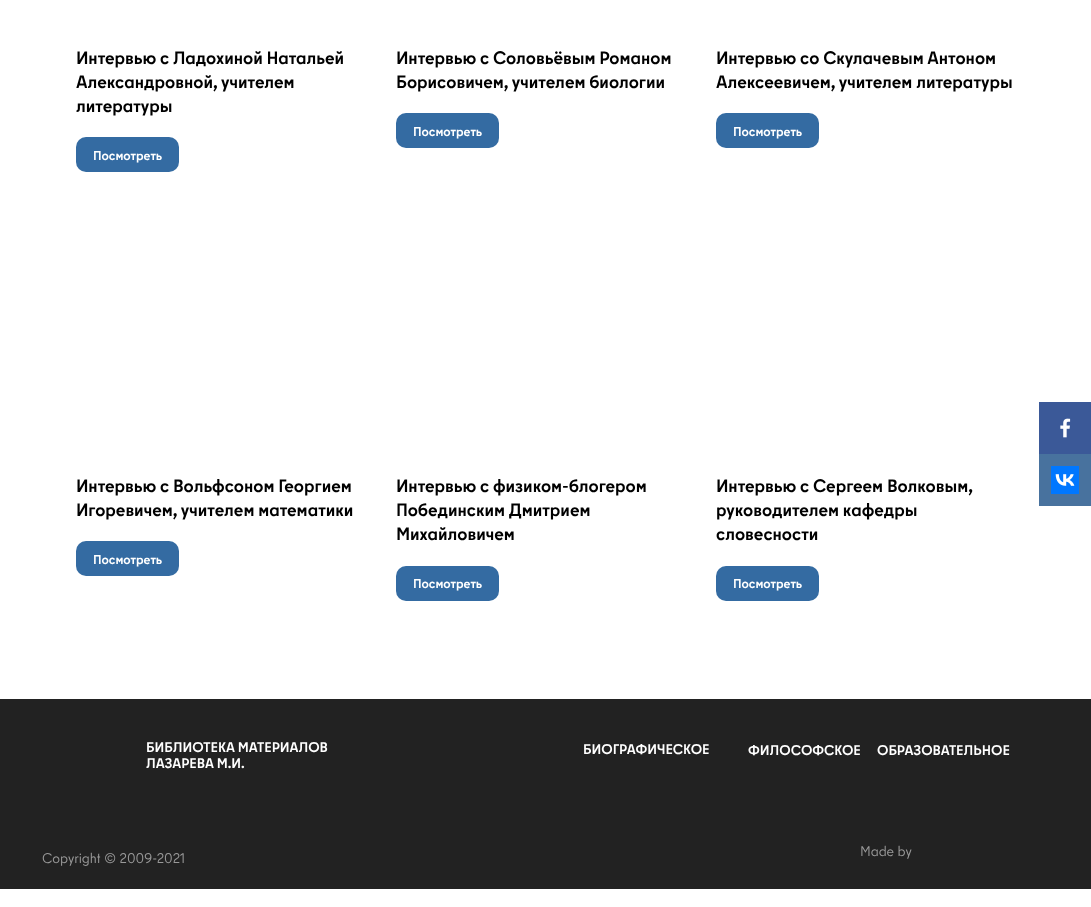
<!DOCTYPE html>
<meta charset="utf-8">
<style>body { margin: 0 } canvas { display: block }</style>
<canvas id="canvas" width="1091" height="907"></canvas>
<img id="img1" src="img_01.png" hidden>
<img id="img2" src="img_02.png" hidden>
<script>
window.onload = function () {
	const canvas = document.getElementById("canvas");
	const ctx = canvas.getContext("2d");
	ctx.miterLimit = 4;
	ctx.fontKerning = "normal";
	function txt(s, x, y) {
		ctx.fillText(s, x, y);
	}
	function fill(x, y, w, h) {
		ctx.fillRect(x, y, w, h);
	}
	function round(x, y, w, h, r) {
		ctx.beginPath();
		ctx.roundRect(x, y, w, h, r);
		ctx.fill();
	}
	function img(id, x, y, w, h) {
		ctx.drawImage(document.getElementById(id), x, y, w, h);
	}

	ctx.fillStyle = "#FFFFFF";
	fill(0, 0, 1091, 907);
	ctx.fillStyle = "#346BA2";
	round(76, 137, 103, 35, 10);
	round(396, 113, 103, 35, 10);
	round(716, 113, 103, 35, 10);
	round(76, 541, 103, 35, 10);
	round(396, 566, 103, 35, 10);
	round(716, 566, 103, 35, 10);
	ctx.fillStyle = "#3B5998";
	fill(1039, 402, 52, 52);
	img("img1", 1060, 418, 11, 20);
	ctx.fillStyle = "#48729E";
	fill(1039, 454, 52, 52);
	ctx.fillStyle = "#0077FF";
	fill(1051, 466, 28, 28);
	img("img2", 1055, 474, 20, 12);
	ctx.fillStyle = "#222222";
	fill(0, 699, 1091, 190);
	ctx.font = "bold 18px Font";
	ctx.fillStyle = "#000000";
	txt("Интервью с Ладохиной Натальей", 76, 64);
	txt("Александровной, учителем", 76, 88);
	txt("литературы", 76, 112);
	ctx.font = "bold 13px Font";
	ctx.fillStyle = "#FFFFFF";
	txt("Посмотреть", 93, 160);
	ctx.font = "bold 18px Font";
	ctx.fillStyle = "#000000";
	txt("Интервью с Соловьёвым Романом", 396, 64);
	txt("Борисовичем, учителем биологии", 396, 88);
	ctx.font = "bold 13px Font";
	ctx.fillStyle = "#FFFFFF";
	txt("Посмотреть", 413, 136);
	ctx.font = "bold 18px Font";
	ctx.fillStyle = "#000000";
	txt("Интервью со Скулачевым Антоном", 716, 64);
	txt("Алексеевичем, учителем литературы", 716, 88);
	ctx.font = "bold 13px Font";
	ctx.fillStyle = "#FFFFFF";
	txt("Посмотреть", 733, 136);
	ctx.font = "bold 18px Font";
	ctx.fillStyle = "#000000";
	txt("Интервью с Вольфсоном Георгием", 76, 492);
	txt("Игоревичем, учителем математики", 76, 516);
	ctx.font = "bold 13px Font";
	ctx.fillStyle = "#FFFFFF";
	txt("Посмотреть", 93, 564);
	ctx.font = "bold 18px Font";
	ctx.fillStyle = "#000000";
	txt("Интервью с физиком-блогером", 396, 492);
	txt("Побединским Дмитрием", 396, 516);
	txt("Михайловичем", 396, 540);
	ctx.font = "bold 13px Font";
	ctx.fillStyle = "#FFFFFF";
	txt("Посмотреть", 413, 588);
	ctx.font = "bold 18px Font";
	ctx.fillStyle = "#000000";
	txt("Интервью с Сергеем Волковым,", 716, 492);
	txt("руководителем кафедры", 716, 516);
	txt("словесности", 716, 540);
	ctx.font = "bold 13px Font";
	ctx.fillStyle = "#FFFFFF";
	txt("Посмотреть", 733, 588);
	ctx.font = "bold 14px Font";
	txt("БИБЛИОТЕКА МАТЕРИАЛОВ", 146, 752);
	txt("ЛАЗАРЕВА М.И.", 146, 768);
	txt("БИОГРАФИЧЕСКОЕ", 583, 754);
	txt("ФИЛОСОФСКОЕ", 748, 755);
	txt("ОБРАЗОВАТЕЛЬНОЕ", 877, 755);
	ctx.font = "14px Font";
	ctx.fillStyle = "#999999";
	txt("Copyright © 2009-2021", 42, 863);
	txt("Made by", 860, 856);
};
</script>
